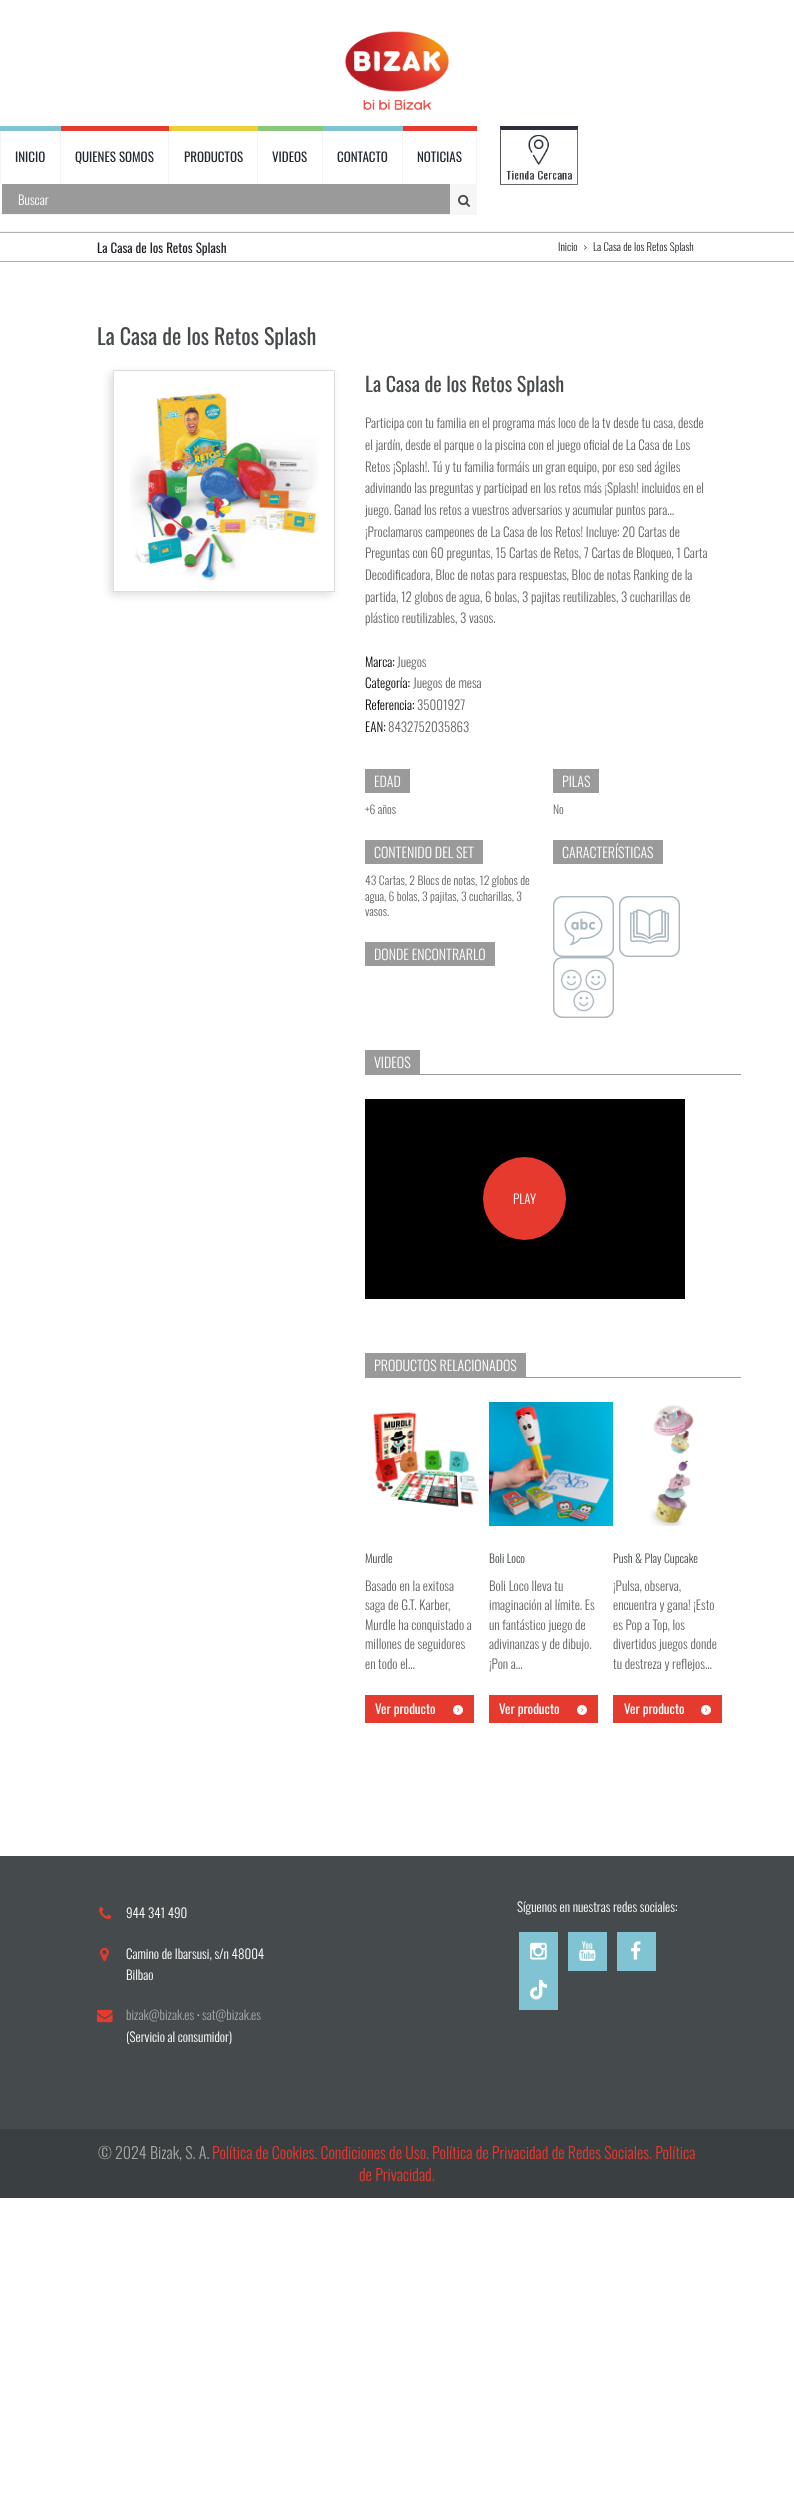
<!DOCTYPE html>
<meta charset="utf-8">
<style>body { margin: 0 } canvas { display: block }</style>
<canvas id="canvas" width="794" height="2498"></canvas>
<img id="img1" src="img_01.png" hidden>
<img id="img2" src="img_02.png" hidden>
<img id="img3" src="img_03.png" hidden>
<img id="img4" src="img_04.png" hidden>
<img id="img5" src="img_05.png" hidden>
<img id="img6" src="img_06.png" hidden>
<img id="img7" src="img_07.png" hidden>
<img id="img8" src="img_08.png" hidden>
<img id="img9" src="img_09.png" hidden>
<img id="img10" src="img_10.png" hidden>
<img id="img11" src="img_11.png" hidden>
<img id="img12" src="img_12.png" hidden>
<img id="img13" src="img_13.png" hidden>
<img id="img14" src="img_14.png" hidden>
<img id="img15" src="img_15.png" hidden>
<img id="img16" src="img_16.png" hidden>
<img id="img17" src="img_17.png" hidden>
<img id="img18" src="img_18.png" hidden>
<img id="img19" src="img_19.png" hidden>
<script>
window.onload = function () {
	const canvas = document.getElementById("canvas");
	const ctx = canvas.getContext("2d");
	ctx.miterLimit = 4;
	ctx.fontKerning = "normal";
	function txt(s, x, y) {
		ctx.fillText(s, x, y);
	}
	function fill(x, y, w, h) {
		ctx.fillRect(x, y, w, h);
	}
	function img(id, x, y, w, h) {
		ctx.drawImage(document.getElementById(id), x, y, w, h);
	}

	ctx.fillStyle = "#FFFFFF";
	fill(0, 0, 794, 2498);
	ctx.fillStyle = "#F4F4F4";
	fill(0, 231, 794, 1);
	img("img1", 345, 31, 104, 79);
	fill(60, 126, 1, 58);
	fill(0, 126, 1, 58);
	ctx.fillStyle = "#80C3D2";
	fill(0, 126, 61, 5);
	ctx.fillStyle = "#F4F4F4";
	fill(168, 126, 1, 58);
	ctx.fillStyle = "#E73A2F";
	fill(61, 126, 108, 5);
	ctx.fillStyle = "#F4F4F4";
	fill(257, 126, 1, 58);
	ctx.fillStyle = "#F0CD3A";
	fill(169, 126, 89, 5);
	ctx.fillStyle = "#F4F4F4";
	fill(322, 126, 1, 58);
	ctx.fillStyle = "#88C87B";
	fill(258, 126, 65, 5);
	ctx.fillStyle = "#F4F4F4";
	fill(402, 126, 1, 58);
	ctx.fillStyle = "#80C3D2";
	fill(323, 126, 80, 5);
	ctx.fillStyle = "#F4F4F4";
	fill(476, 126, 1, 58);
	ctx.fillStyle = "#E73A2F";
	fill(403, 126, 74, 5);
	ctx.fillStyle = "#F6F6F6";
	fill(2, 184, 475, 31);
	ctx.fillStyle = "#9A9A9A";
	fill(2, 184, 448, 30);
	img("img2", 458, 194, 12, 13);
	img("img3", 500, 126, 78, 59);
	ctx.fillStyle = "#AFB0B4";
	fill(0, 232, 794, 1);
	fill(0, 261, 794, 1);
	img("img4", 584, 245, 3, 5);
	ctx.save();
	ctx.beginPath();
	ctx.moveTo(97, 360);
	ctx.lineTo(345, 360);
	ctx.lineTo(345, 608);
	ctx.lineTo(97, 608);
	ctx.closePath();
	ctx.moveTo(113, 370);
	ctx.lineTo(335, 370);
	ctx.lineTo(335, 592);
	ctx.lineTo(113, 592);
	ctx.closePath();
	ctx.clip("evenodd");
	ctx.fillStyle = "#DDDDDD";
	ctx.filter = "blur(4px)";
	ctx.beginPath();
	ctx.rect(110, 373, 222, 222);
	ctx.fill();
	ctx.filter = "none";
	ctx.restore();
	ctx.strokeStyle = "#DDDDDD";
	ctx.strokeRect(113.5, 370.5, 221, 221);
	img("img5", 129, 392, 190, 189);
	ctx.fillStyle = "#9A9A9A";
	fill(365, 769, 45, 24);
	fill(365, 840, 118, 24);
	fill(365, 942, 130, 24);
	fill(553, 769, 46, 24);
	fill(553, 840, 110, 24);
	img("img6", 553, 896, 61, 61);
	img("img7", 619, 896, 61, 61);
	img("img8", 553, 957, 61, 61);
	fill(365, 1074, 376, 1);
	fill(365, 1050, 55, 24);
	ctx.fillStyle = "#000000";
	fill(365, 1099, 320, 200);
	ctx.fillStyle = "#E73A2F";
	ctx.beginPath();
	ctx.arc(524.5, 1198.5, 41.5, 0, Math.PI * 2);
	ctx.fill();
	ctx.fillStyle = "#9A9A9A";
	fill(365, 1377, 376, 1);
	fill(365, 1353, 161, 24);
	img("img9", 373, 1412, 106, 95);
	ctx.fillStyle = "#E73A2F";
	fill(365, 1695, 109, 28);
	ctx.fillStyle = "#FFFFFF";
	ctx.beginPath();
	ctx.arc(458, 1710, 5, 0, Math.PI * 2);
	ctx.fill();
	img("img10", 457, 1707, 3, 5);
	img("img11", 489, 1402, 124, 124);
	ctx.fillStyle = "#E73A2F";
	fill(489, 1695, 109, 28);
	ctx.fillStyle = "#FFFFFF";
	ctx.beginPath();
	ctx.arc(582, 1710, 5, 0, Math.PI * 2);
	ctx.fill();
	img("img10", 581, 1707, 3, 5);
	img("img12", 650, 1405, 44, 121);
	ctx.fillStyle = "#E73A2F";
	fill(613, 1695, 109, 28);
	ctx.fillStyle = "#FFFFFF";
	ctx.beginPath();
	ctx.arc(706, 1710, 5, 0, Math.PI * 2);
	ctx.fill();
	img("img10", 705, 1707, 3, 5);
	ctx.fillStyle = "#454A4C";
	fill(0, 1856, 794, 273);
	img("img13", 99, 1906, 13, 14);
	img("img14", 100, 1947, 9, 15);
	img("img15", 97, 2010, 16, 13);
	ctx.fillStyle = "#80C3D2";
	fill(519, 1932, 39, 78);
	img("img16", 530, 1942, 17, 18);
	fill(568, 1932, 39, 39);
	img("img17", 579, 1941, 17, 20);
	fill(617, 1932, 39, 39);
	img("img18", 631, 1941, 10, 19);
	img("img19", 530, 1979, 18, 21);
	ctx.fillStyle = "#3A3F41";
	fill(0, 2129, 794, 69);
	ctx.font = "13px Oswald";
	ctx.fillStyle = "#232A34";
	txt("INICIO", 15, 162);
	txt("QUIENES SOMOS", 75, 162);
	txt("PRODUCTOS", 184, 162);
	txt("VIDEOS", 272, 162);
	txt("CONTACTO", 337, 162);
	txt("NOTICIAS", 417, 162);
	ctx.font = "300 13px Oswald";
	ctx.fillStyle = "#FFFFFF";
	txt("Buscar", 18, 205);
	ctx.font = "13px Oswald";
	ctx.fillStyle = "#1E1F24";
	txt("La Casa de los Retos Splash", 97, 253);
	ctx.font = "300 10.75px Oswald";
	txt("Inicio", 558, 251);
	txt("La Casa de los Retos Splash", 593, 251);
	ctx.font = "22px Oswald";
	ctx.fillStyle = "#454A4C";
	txt("La Casa de los Retos Splash", 97, 345);
	ctx.font = "20px Oswald";
	txt("La Casa de los Retos Splash", 365, 392);
	ctx.font = "300 13px Oswald";
	ctx.fillStyle = "#646464";
	txt("Participa con tu familia en el programa más loco de la tv desde tu casa, desde", 365, 428);
	txt("el jardín, desde el parque o la piscina con el juego oficial de La Casa de Los", 365, 450);
	txt("Retos ¡Splash!. Tú y tu familia formáis un gran equipo, por eso sed ágiles", 365, 472);
	txt("adivinando las preguntas y participad en los retos más ¡Splash! incluidos en el", 365, 493);
	txt("juego. Ganad los retos a vuestros adversarios y acumular puntos para…", 365, 515);
	txt("¡Proclamaros campeones de La Casa de los Retos! Incluye: 20 Cartas de", 365, 537);
	txt("Preguntas con 60 preguntas, 15 Cartas de Retos, 7 Cartas de Bloqueo, 1 Carta", 365, 558);
	txt("Decodificadora, Bloc de notas para respuestas, Bloc de notas Ranking de la", 365, 580);
	txt("partida, 12 globos de agua, 6 bolas, 3 pajitas reutilizables, 3 cucharillas de", 365, 602);
	txt("plástico reutilizables, 3 vasos.", 365, 623);
	ctx.fillStyle = "#000000";
	txt("Marca:", 365, 667);
	ctx.fillStyle = "#646464";
	txt("Juegos", 397, 667);
	ctx.fillStyle = "#000000";
	txt("Categoría:", 365, 688);
	ctx.fillStyle = "#646464";
	txt("Juegos de mesa", 413, 688);
	ctx.fillStyle = "#000000";
	txt("Referencia:", 365, 710);
	ctx.fillStyle = "#646464";
	txt("35001927", 417, 710);
	ctx.fillStyle = "#000000";
	txt("EAN:", 365, 732);
	ctx.fillStyle = "#646464";
	txt("8432752035863", 388, 732);
	ctx.font = "300 14px Oswald";
	ctx.fillStyle = "#FFFFFF";
	txt("EDAD", 374, 787);
	ctx.font = "300 11.75px Oswald";
	ctx.fillStyle = "#646464";
	txt("+6 años", 365, 814);
	ctx.font = "300 14px Oswald";
	ctx.fillStyle = "#FFFFFF";
	txt("CONTENIDO DEL SET", 374, 858);
	ctx.font = "300 11.75px Oswald";
	ctx.fillStyle = "#646464";
	txt("43 Cartas, 2 Blocs de notas, 12 globos de", 365, 885);
	txt("agua, 6 bolas, 3 pajitas, 3 cucharillas, 3", 365, 901);
	txt("vasos.", 365, 916);
	ctx.font = "300 14px Oswald";
	ctx.fillStyle = "#FFFFFF";
	txt("DONDE ENCONTRARLO", 374, 960);
	txt("PILAS", 562, 787);
	ctx.font = "300 11.75px Oswald";
	ctx.fillStyle = "#646464";
	txt("No", 553, 814);
	ctx.font = "300 14px Oswald";
	ctx.fillStyle = "#FFFFFF";
	txt("CARACTERÍSTICAS", 562, 858);
	txt("VIDEOS", 374, 1068);
	ctx.font = "300 13px Oswald";
	txt("PLAY", 513, 1204);
	ctx.font = "300 14px Oswald";
	txt("PRODUCTOS RELACIONADOS", 374, 1371);
	ctx.font = "300 11.75px Oswald";
	ctx.fillStyle = "#454A4C";
	txt("Murdle", 365, 1563);
	ctx.font = "300 13px Oswald";
	ctx.fillStyle = "#646464";
	txt("Basado en la exitosa", 365, 1591);
	txt("saga de G.T. Karber,", 365, 1610);
	txt("Murdle ha conquistado a", 365, 1630);
	txt("millones de seguidores", 365, 1649);
	txt("en todo el…", 365, 1669);
	ctx.font = "13px Oswald";
	ctx.fillStyle = "#FFFFFF";
	txt("Ver producto", 375, 1714);
	ctx.font = "300 11.75px Oswald";
	ctx.fillStyle = "#454A4C";
	txt("Boli Loco", 489, 1563);
	ctx.font = "300 13px Oswald";
	ctx.fillStyle = "#646464";
	txt("Boli Loco lleva tu", 489, 1591);
	txt("imaginación al límite. Es", 489, 1610);
	txt("un fantástico juego de", 489, 1630);
	txt("adivinanzas y de dibujo.", 489, 1649);
	txt("¡Pon a…", 489, 1669);
	ctx.font = "13px Oswald";
	ctx.fillStyle = "#FFFFFF";
	txt("Ver producto", 499, 1714);
	ctx.font = "300 11.75px Oswald";
	ctx.fillStyle = "#454A4C";
	txt("Push & Play Cupcake", 613, 1563);
	ctx.font = "300 13px Oswald";
	ctx.fillStyle = "#646464";
	txt("¡Pulsa, observa,", 613, 1591);
	txt("encuentra y gana! ¡Esto", 613, 1610);
	txt("es Pop a Top, los", 613, 1630);
	txt("divertidos juegos donde", 613, 1649);
	txt("tu destreza y reflejos…", 613, 1669);
	ctx.font = "13px Oswald";
	ctx.fillStyle = "#FFFFFF";
	txt("Ver producto", 624, 1714);
	ctx.font = "300 13px Oswald";
	txt("944 341 490", 126, 1918);
	txt("Camino de Ibarsusi, s/n 48004", 126, 1959);
	txt("Bilbao", 126, 1980);
	ctx.fillStyle = "#A6A6A6";
	txt("bizak@bizak.es", 126, 2020);
	ctx.fillStyle = "#FFFFFF";
	txt("·", 197, 2020);
	ctx.fillStyle = "#A6A6A6";
	txt("sat@bizak.es", 202, 2020);
	ctx.fillStyle = "#FFFFFF";
	txt("(Servicio al consumidor)", 126, 2042);
	txt("Síguenos en nuestras redes sociales:", 517, 1912);
	ctx.font = "300 16px Oswald";
	ctx.fillStyle = "#A6A6A6";
	txt("© 2024 Bizak, S. A.", 98, 2159);
	ctx.fillStyle = "#E73A2F";
	txt("Política de Cookies. Condiciones de Uso. Política de Privacidad de Redes Sociales. Política", 212, 2159);
	txt("de Privacidad.", 359, 2181);
};
</script>
